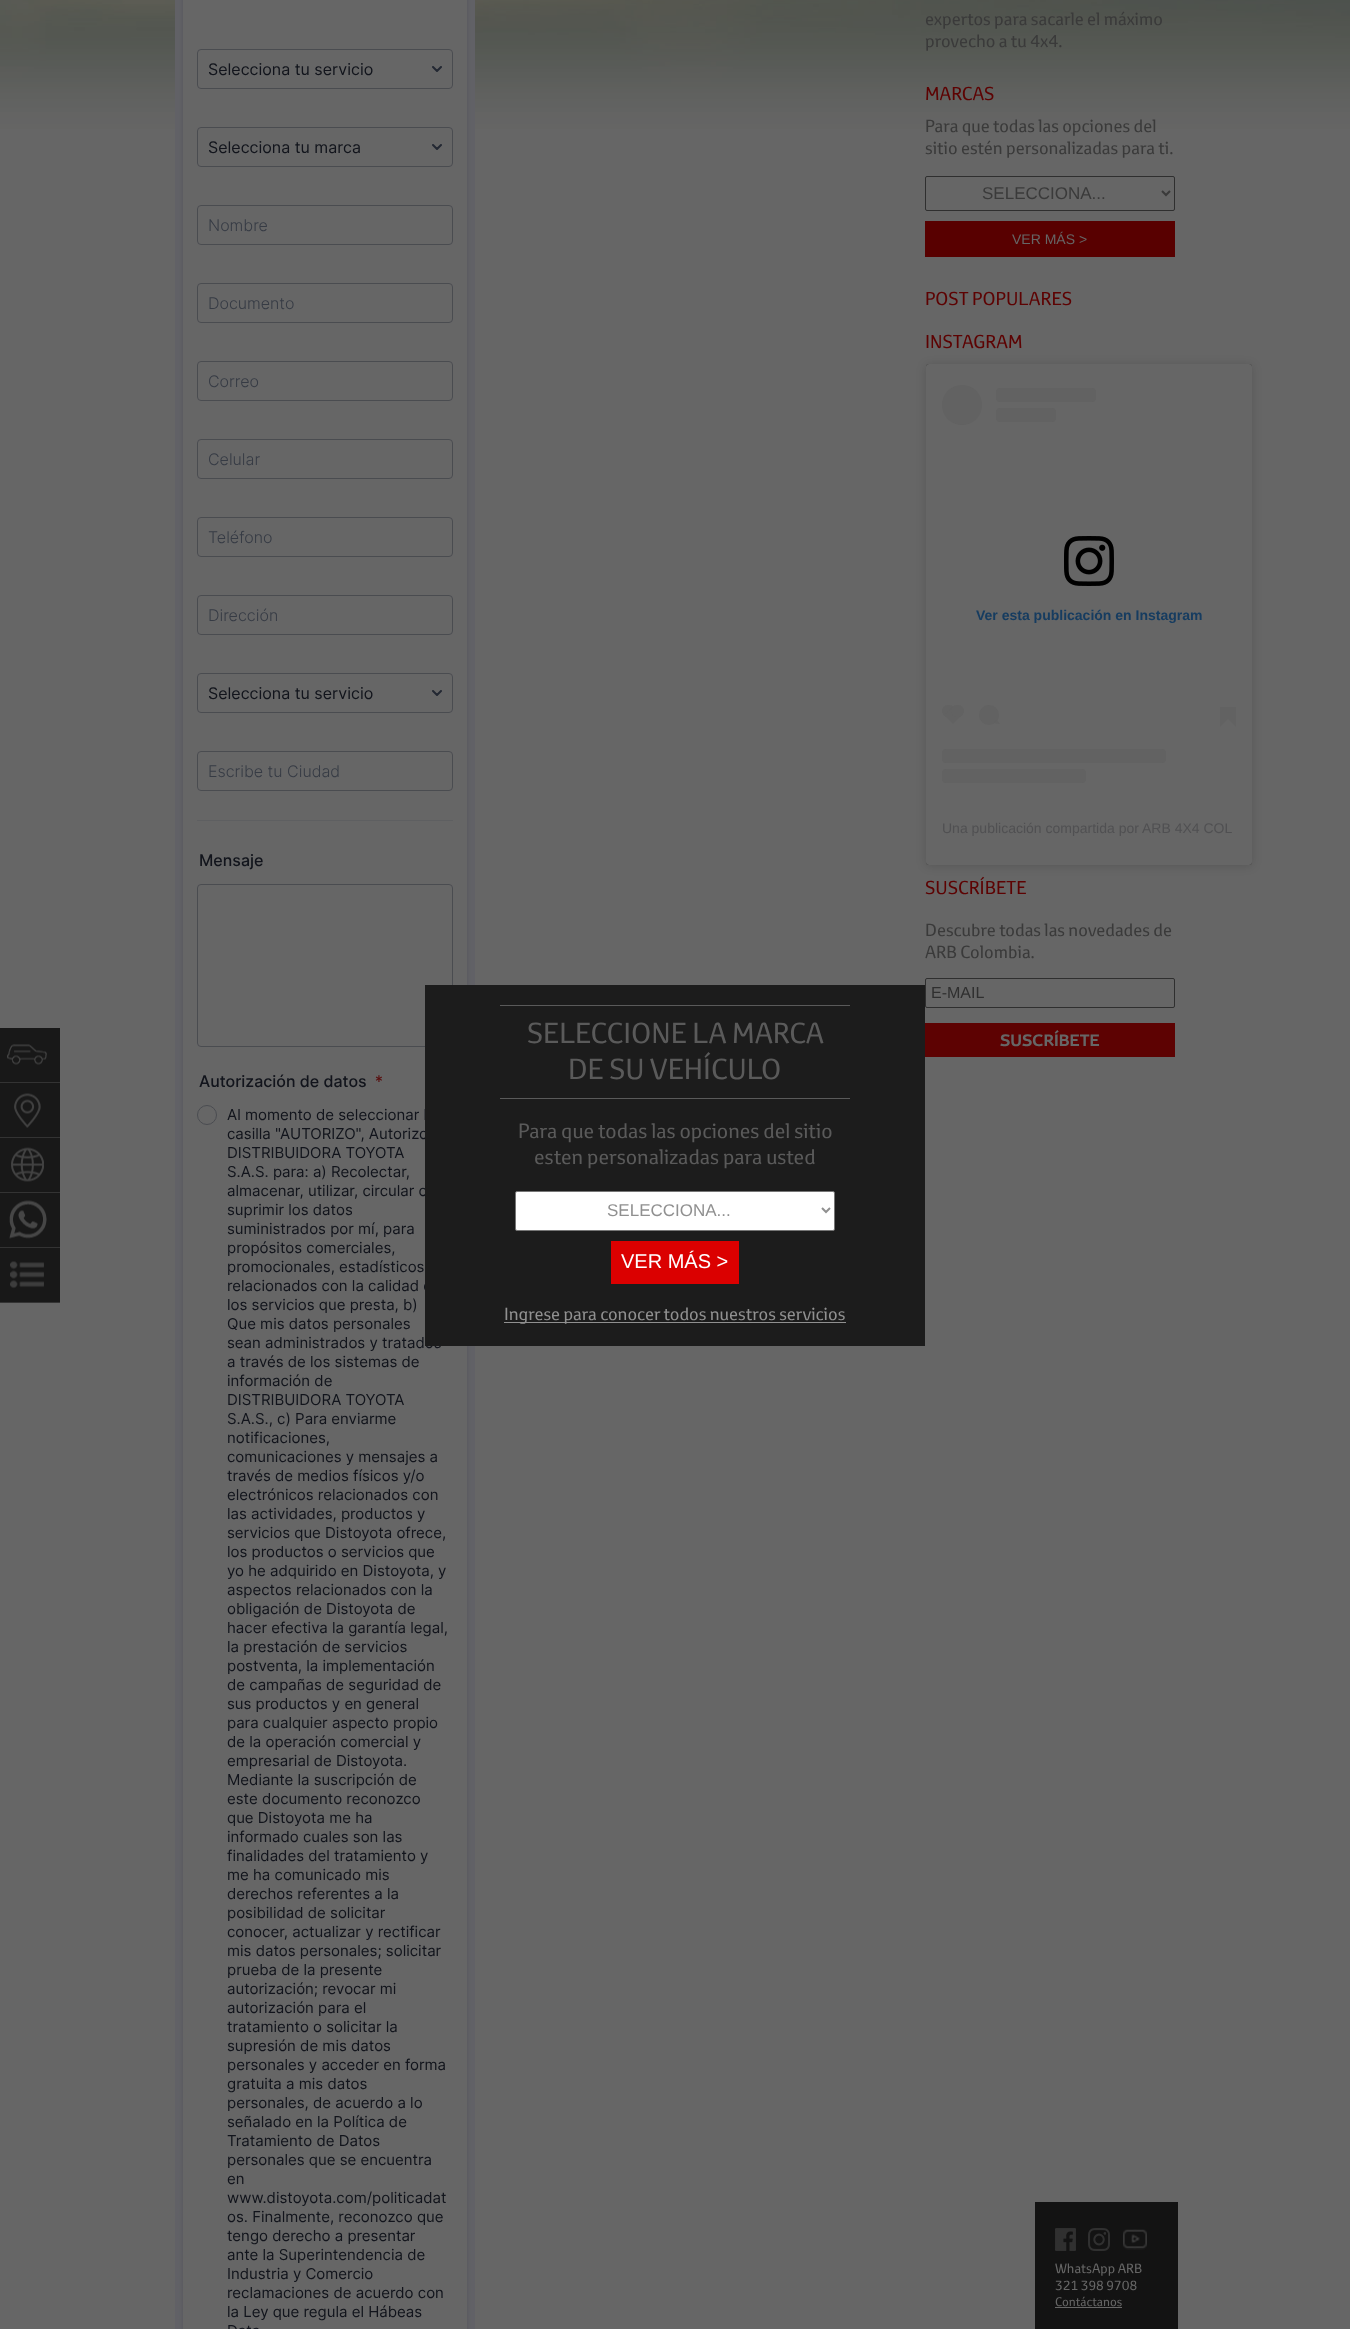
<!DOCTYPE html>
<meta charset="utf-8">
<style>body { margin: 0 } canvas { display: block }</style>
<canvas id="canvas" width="1350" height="2329"></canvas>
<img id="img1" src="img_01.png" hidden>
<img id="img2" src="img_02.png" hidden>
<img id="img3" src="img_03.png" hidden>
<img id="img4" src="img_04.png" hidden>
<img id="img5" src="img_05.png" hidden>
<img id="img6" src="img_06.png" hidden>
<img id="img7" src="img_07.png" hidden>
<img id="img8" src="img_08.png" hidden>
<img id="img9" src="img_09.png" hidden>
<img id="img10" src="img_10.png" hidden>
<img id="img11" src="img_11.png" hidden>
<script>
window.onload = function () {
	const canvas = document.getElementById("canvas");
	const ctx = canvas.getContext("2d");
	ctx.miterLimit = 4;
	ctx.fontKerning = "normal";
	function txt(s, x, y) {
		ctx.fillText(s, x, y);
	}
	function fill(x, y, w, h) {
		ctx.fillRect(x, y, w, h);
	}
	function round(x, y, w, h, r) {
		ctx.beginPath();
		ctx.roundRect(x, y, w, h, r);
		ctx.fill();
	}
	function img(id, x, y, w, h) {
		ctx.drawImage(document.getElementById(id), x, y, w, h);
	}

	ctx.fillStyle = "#666666";
	fill(0, 0, 1350, 2329);
	img("img1", 0, 0, 1350, 129);
	ctx.fillStyle = "#181818";
	fill(0, 1028, 60, 274);
	ctx.fillStyle = "#333333";
	fill(0, 1082, 60, 1);
	img("img2", 7, 1044, 40, 21);
	fill(0, 1137, 60, 1);
	img("img3", 14, 1093, 27, 35);
	fill(0, 1192, 60, 1);
	img("img4", 11, 1147, 33, 35);
	fill(0, 1247, 60, 1);
	img("img5", 9, 1200, 38, 39);
	fill(0, 1302, 60, 1);
	img("img6", 10, 1261, 34, 28);
	img("img7", 175, 0, 300, 2329);
	ctx.beginPath();
	ctx.roundRect(925.5, 176.5, 249, 34, 1.5);
	ctx.strokeStyle = "#2F2F2F";
	ctx.stroke();
	ctx.beginPath();
	ctx.moveTo(1162, 191);
	ctx.lineTo(1166, 195);
	ctx.lineTo(1170, 191);
	ctx.strokeStyle = "#3A3A3A";
	ctx.lineWidth = 2;
	ctx.stroke();
	ctx.fillStyle = "#580000";
	fill(925, 221, 250, 36);
	ctx.fillStyle = "rgba(0, 0, 0, 0.15)";
	ctx.filter = "blur(5px)";
	ctx.beginPath();
	ctx.roundRect(926, 365, 326, 501, 3);
	ctx.fill();
	ctx.filter = "none";
	ctx.fillStyle = "rgba(0, 0, 0, 0.5)";
	ctx.filter = "blur(0.5px)";
	ctx.beginPath();
	ctx.roundRect(926, 364, 326, 501, 3);
	ctx.fill();
	ctx.filter = "none";
	ctx.fillStyle = "#666666";
	round(926, 364, 326, 501, 3);
	ctx.fillStyle = "#626262";
	ctx.beginPath();
	ctx.arc(962, 405, 20, 0, Math.PI * 2);
	ctx.fill();
	round(996, 388, 100, 14, 4);
	round(996, 408, 60, 14, 4);
	img("img8", 1064, 536, 50, 50);
	round(942, 705, 13, 12, 6);
	ctx.beginPath();
	ctx.moveTo(944, 715);
	ctx.lineTo(953, 706.5);
	ctx.lineTo(962, 715);
	ctx.lineTo(953, 724);
	ctx.closePath();
	ctx.fill();
	round(951, 705, 13, 12, 6);
	ctx.beginPath();
	ctx.arc(989, 715, 10, 0, Math.PI * 2);
	ctx.fill();
	ctx.beginPath();
	ctx.moveTo(994, 723);
	ctx.lineTo(996, 719.5);
	ctx.lineTo(1000, 724);
	ctx.closePath();
	ctx.fill();
	fill(1220, 707, 16, 12);
	ctx.beginPath();
	ctx.moveTo(1220, 719);
	ctx.lineTo(1228, 719);
	ctx.lineTo(1220, 727);
	ctx.closePath();
	ctx.fill();
	ctx.beginPath();
	ctx.moveTo(1228, 719);
	ctx.lineTo(1236, 719);
	ctx.lineTo(1236, 727);
	ctx.closePath();
	ctx.fill();
	round(942, 749, 224, 14, 4);
	round(942, 769, 144, 14, 4);
	ctx.beginPath();
	ctx.roundRect(925.5, 978.5, 249, 29, 1.5);
	ctx.strokeStyle = "#2F2F2F";
	ctx.lineWidth = 1;
	ctx.stroke();
	ctx.fillStyle = "#5D0202";
	fill(925, 1023, 250, 34);
	ctx.fillStyle = "#1C1C1C";
	fill(425, 985, 500, 361);
	ctx.fillStyle = "#5A5A5A";
	fill(500, 1005, 350, 1);
	fill(500, 1098, 350, 1);
	ctx.fillStyle = "#FFFFFF";
	ctx.beginPath();
	ctx.roundRect(515.5, 1191.5, 319, 39, 1.5);
	ctx.fill();
	ctx.strokeStyle = "#767676";
	ctx.stroke();
	ctx.beginPath();
	ctx.moveTo(822, 1208);
	ctx.lineTo(826, 1212);
	ctx.lineTo(830, 1208);
	ctx.strokeStyle = "#909090";
	ctx.lineWidth = 2;
	ctx.stroke();
	ctx.fillStyle = "#DB0000";
	fill(611, 1241, 128, 43);
	ctx.fillStyle = "#909090";
	fill(504, 1322, 342, 1);
	ctx.fillStyle = "#131313";
	fill(1035, 2202, 143, 127);
	img("img9", 1055, 2228, 21, 23);
	img("img10", 1088, 2228, 22, 23);
	img("img11", 1123, 2229, 24, 21);
	ctx.fillStyle = "#666666";
	fill(1055, 2307, 67, 1);
	ctx.font = "17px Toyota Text";
	ctx.fillStyle = "#3A3A3A";
	txt("expertos para sacarle el máximo", 925, 25);
	txt("provecho a tu 4x4.", 925, 47);
	ctx.font = "18px Toyota Text";
	ctx.fillStyle = "#5D0202";
	txt("MARCAS", 925, 100);
	ctx.font = "17px Toyota Text";
	ctx.fillStyle = "#3A3A3A";
	txt("Para que todas las opciones del", 925, 132);
	txt("sitio estén personalizadas para ti.", 925, 154);
	ctx.font = "17px Liberation Sans";
	txt("SELECCIONA...", 982, 199);
	ctx.font = "14px Liberation Sans";
	ctx.fillStyle = "#666666";
	txt("VER MÁS >", 1012, 244);
	ctx.font = "18px Toyota Text";
	ctx.fillStyle = "#5D0202";
	txt("POST POPULARES", 925, 305);
	txt("INSTAGRAM", 925, 348);
	ctx.font = "bold 14px Liberation Sans";
	ctx.fillStyle = "#163C60";
	txt("Ver esta publicación en Instagram", 976, 620);
	ctx.font = "14px Liberation Sans";
	ctx.fillStyle = "#505052";
	txt("Una publicación compartida por ARB 4X4 COL", 942, 833);
	ctx.font = "18px Toyota Text";
	ctx.fillStyle = "#5D0202";
	txt("SUSCRÍBETE", 925, 894);
	ctx.font = "17px Toyota Text";
	ctx.fillStyle = "#3A3A3A";
	txt("Descubre todas las novedades de", 925, 936);
	txt("ARB Colombia.", 925, 958);
	ctx.font = "16px Liberation Sans";
	ctx.fillStyle = "#2F2F2F";
	txt("E-MAIL", 931, 998);
	ctx.font = "bold 16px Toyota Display";
	ctx.fillStyle = "#666666";
	txt("SUSCRÍBETE", 1000, 1046);
	ctx.font = "28px Toyota Text";
	ctx.fillStyle = "#5A5A5A";
	txt("SELECCIONE LA MARCA", 527, 1043);
	txt("DE SU VEHÍCULO", 568, 1079);
	ctx.font = "20px Toyota Text";
	txt("Para que todas las opciones del sitio", 518, 1138);
	txt("esten personalizadas para usted", 534, 1164);
	ctx.font = "17px Liberation Sans";
	ctx.fillStyle = "#909090";
	txt("SELECCIONA...", 607, 1216);
	ctx.font = "20px Liberation Sans";
	ctx.fillStyle = "#FFFFFF";
	txt("VER MÁS >", 621, 1268);
	ctx.font = "17px Toyota Text";
	ctx.fillStyle = "#909090";
	txt("Ingrese para conocer todos nuestros servicios", 504, 1320);
	ctx.font = "13px Toyota Text";
	ctx.fillStyle = "#666666";
	txt("WhatsApp ARB", 1055, 2273);
	txt("321 398 9708", 1055, 2290);
	ctx.font = "12px Toyota Text";
	txt("Contáctanos", 1055, 2306);
};
</script>
